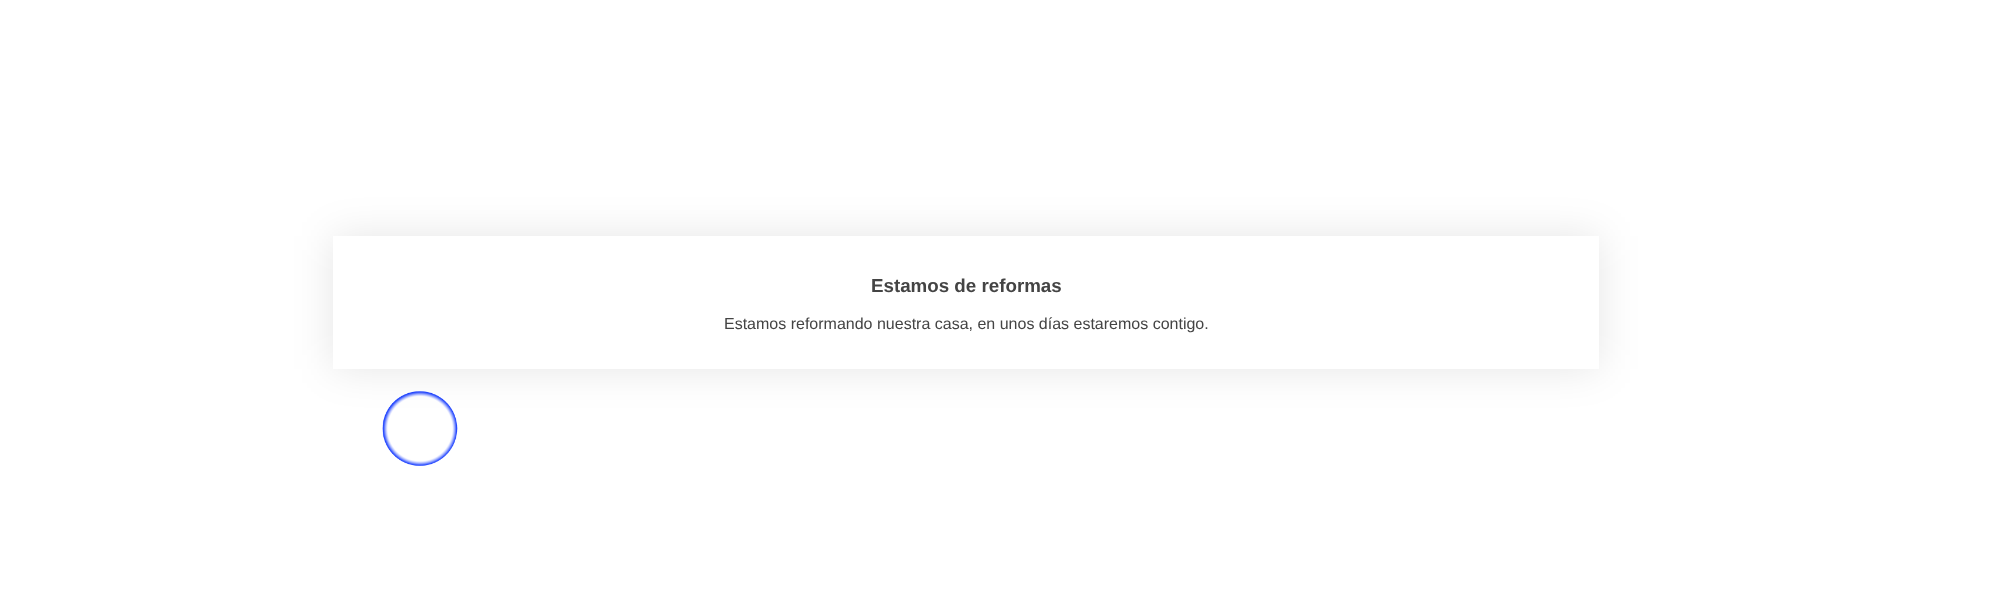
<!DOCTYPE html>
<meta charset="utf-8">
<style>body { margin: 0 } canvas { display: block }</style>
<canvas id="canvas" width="1999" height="605"></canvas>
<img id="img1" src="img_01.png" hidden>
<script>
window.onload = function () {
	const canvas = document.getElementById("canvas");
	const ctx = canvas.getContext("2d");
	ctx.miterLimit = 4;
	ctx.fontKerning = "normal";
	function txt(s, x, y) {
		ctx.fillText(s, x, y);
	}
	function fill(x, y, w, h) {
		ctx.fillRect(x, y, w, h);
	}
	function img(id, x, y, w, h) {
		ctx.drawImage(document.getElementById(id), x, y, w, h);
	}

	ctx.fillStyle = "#FFFFFF";
	fill(0, 0, 1999, 605);
	img("img1", 382, 391, 76, 75);
	ctx.save();
	ctx.beginPath();
	ctx.moveTo(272, 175);
	ctx.lineTo(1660, 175);
	ctx.lineTo(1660, 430);
	ctx.lineTo(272, 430);
	ctx.closePath();
	ctx.moveTo(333, 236);
	ctx.lineTo(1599, 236);
	ctx.lineTo(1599, 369);
	ctx.lineTo(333, 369);
	ctx.closePath();
	ctx.clip("evenodd");
	ctx.fillStyle = "rgba(0, 0, 0, 0.1)";
	ctx.filter = "blur(20px)";
	ctx.beginPath();
	ctx.rect(333, 236, 1266, 133);
	ctx.fill();
	ctx.filter = "none";
	ctx.restore();
	ctx.font = "bold 18.75px Liberation Sans";
	ctx.fillStyle = "#444444";
	txt("Estamos de reformas", 871, 292);
	ctx.font = "16px Liberation Sans";
	txt("Estamos reformando nuestra casa, en unos días estaremos contigo.", 724, 329);
};
</script>
